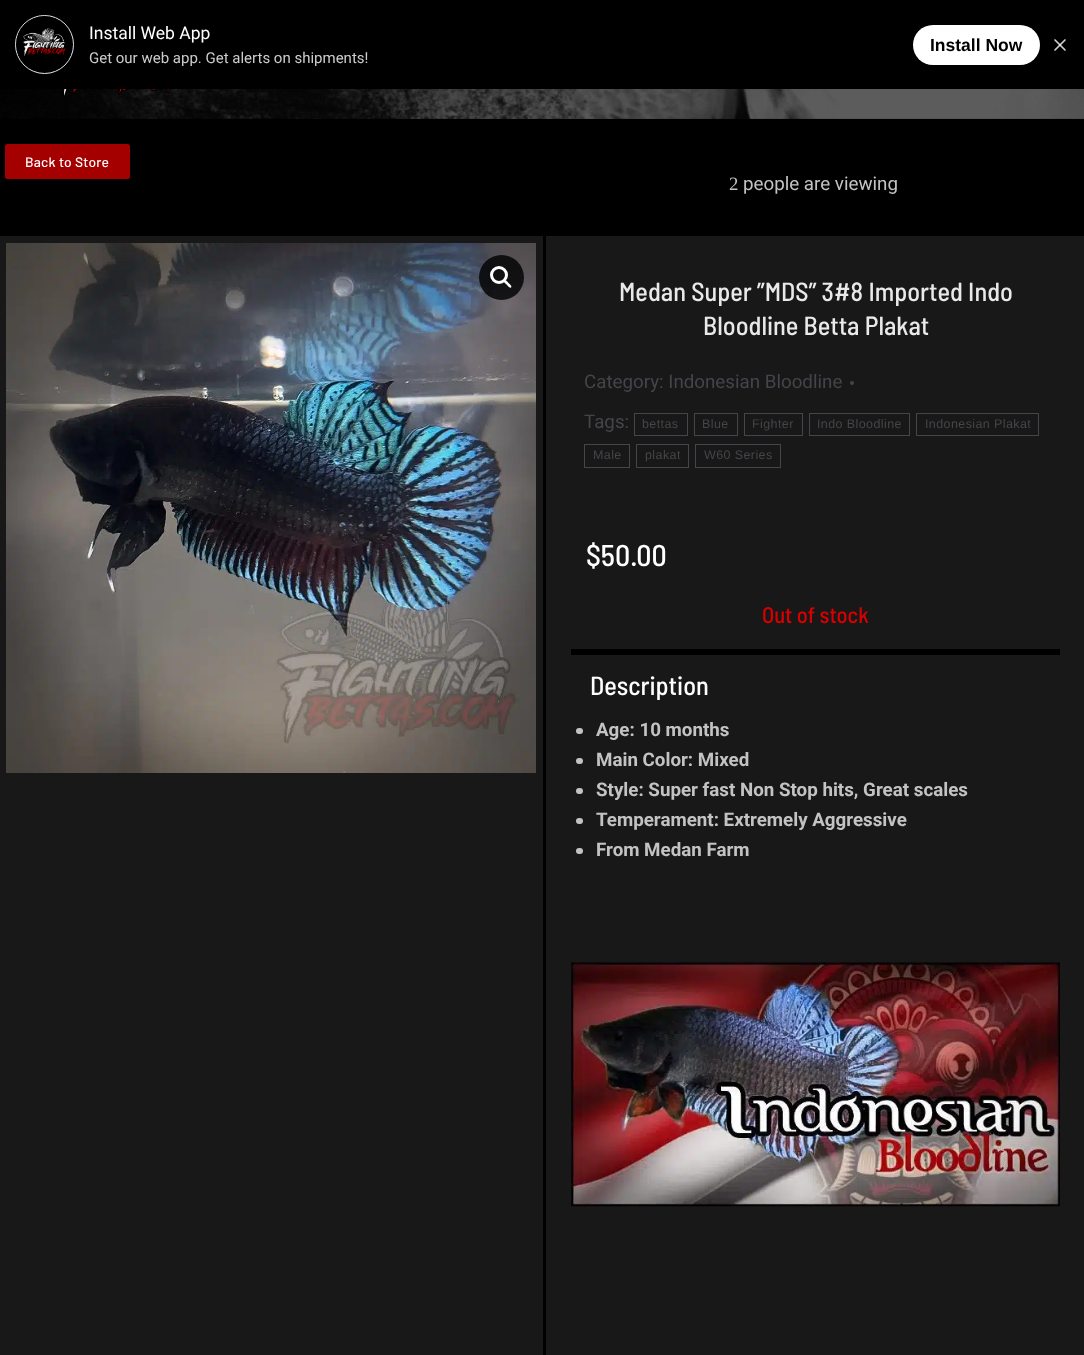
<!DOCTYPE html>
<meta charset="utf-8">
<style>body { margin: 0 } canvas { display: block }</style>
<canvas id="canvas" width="1084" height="1355"></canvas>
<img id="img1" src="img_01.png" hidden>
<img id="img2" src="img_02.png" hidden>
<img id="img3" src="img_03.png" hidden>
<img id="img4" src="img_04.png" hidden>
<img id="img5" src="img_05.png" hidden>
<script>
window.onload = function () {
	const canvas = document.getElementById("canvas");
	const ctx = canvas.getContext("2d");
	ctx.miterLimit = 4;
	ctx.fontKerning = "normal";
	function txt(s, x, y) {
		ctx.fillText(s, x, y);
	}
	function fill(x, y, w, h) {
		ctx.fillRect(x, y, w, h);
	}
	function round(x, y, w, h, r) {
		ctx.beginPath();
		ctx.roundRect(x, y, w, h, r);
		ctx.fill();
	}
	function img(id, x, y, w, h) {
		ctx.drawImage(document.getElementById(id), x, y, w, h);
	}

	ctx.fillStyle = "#000000";
	fill(0, 0, 1084, 1355);
	ctx.beginPath();
	ctx.arc(44.5, 44.5, 29, 0, Math.PI * 2);
	ctx.strokeStyle = "#E5E7EB";
	ctx.stroke();
	img("img1", 16, 16, 57, 55);
	ctx.fillStyle = "#FFFFFF";
	round(913, 25, 127, 40, 20);
	ctx.beginPath();
	ctx.moveTo(1065, 40);
	ctx.lineTo(1055, 50);
	ctx.strokeStyle = "#CCCCCC";
	ctx.lineWidth = 1.7;
	ctx.lineCap = "round";
	ctx.lineJoin = "round";
	ctx.stroke();
	ctx.beginPath();
	ctx.moveTo(1055, 40);
	ctx.lineTo(1065, 50);
	ctx.strokeStyle = "rgba(255, 255, 255, 0.8)";
	ctx.stroke();
	img("img2", 0, 89, 1084, 30);
	img("img3", 62, 89, 109, 7);
	ctx.fillStyle = "#A50000";
	round(5, 144, 125, 35, 2.5);
	ctx.fillStyle = "#181818";
	fill(0, 236, 543, 1119);
	img("img4", 6, 243, 530, 530);
	ctx.fillStyle = "rgba(0, 0, 0, 0.8)";
	ctx.beginPath();
	ctx.arc(501.5, 277.5, 22.5, 0, Math.PI * 2);
	ctx.fill();
	ctx.beginPath();
	ctx.arc(499, 275, 7.5, 0, Math.PI * 2);
	ctx.strokeStyle = "#FFFFFF";
	ctx.lineWidth = 3;
	ctx.stroke();
	ctx.fillStyle = "#FFFFFF";
	ctx.beginPath();
	ctx.moveTo(504, 280);
	ctx.bezierCurveTo(505.5, 279, 507.5, 282, 508.5, 283);
	ctx.bezierCurveTo(509, 283.5, 512.5, 286, 511, 287.5);
	ctx.bezierCurveTo(509.5, 288.5, 507.5, 285.5, 506.5, 284.5);
	ctx.bezierCurveTo(506, 284, 502.5, 281.5, 504, 280);
	ctx.closePath();
	ctx.fill();
	ctx.fillStyle = "#181818";
	fill(546, 236, 538, 1119);
	ctx.fillStyle = "#45444A";
	ctx.beginPath();
	ctx.arc(852, 383, 2, 0, Math.PI * 2);
	ctx.fill();
	ctx.strokeStyle = "#45444A";
	ctx.lineWidth = 1;
	ctx.lineJoin = "miter";
	ctx.strokeRect(634.5, 413.5, 53, 22);
	ctx.strokeRect(694.5, 413.5, 43, 22);
	ctx.strokeRect(744.5, 413.5, 58, 22);
	ctx.strokeRect(809.5, 413.5, 100, 22);
	ctx.strokeRect(916.5, 413.5, 122, 22);
	ctx.strokeRect(584.5, 444.5, 45, 23);
	ctx.strokeRect(636.5, 444.5, 52, 23);
	ctx.strokeRect(695.5, 444.5, 85, 23);
	ctx.fillStyle = "#000000";
	fill(571, 649, 489, 6);
	ctx.fillStyle = "#C3C3C3";
	round(576, 728, 7, 6, 3);
	round(576, 758, 7, 6, 3);
	round(576, 788, 7, 6, 3);
	round(576, 818, 7, 6, 3);
	round(576, 848, 7, 6, 3);
	img("img5", 571, 962, 489, 245);
	ctx.font = "17.5px Roboto";
	ctx.fillStyle = "#FFFFFF";
	txt("Install Web App", 89, 39);
	ctx.font = "15px Roboto";
	ctx.fillStyle = "#CCCCCC";
	txt("Get our web app. Get alerts on shipments!", 89, 63);
	ctx.font = "bold 17.5px Liberation Sans";
	ctx.fillStyle = "#000000";
	txt("Install Now", 930, 51);
	ctx.letterSpacing = "0.25px";
	ctx.font = "500 13.75px Barlow";
	ctx.fillStyle = "#FFFFFF";
	txt("Back to Store", 25, 167);
	ctx.letterSpacing = "0px";
	ctx.font = "18.75px Liberation Serif";
	ctx.fillStyle = "#C3C3C3";
	txt("2", 729, 190);
	ctx.font = "18.75px Roboto";
	txt("people are viewing", 743, 190);
	ctx.font = "500 26.25px Barlow Semi Condensed";
	ctx.fillStyle = "#E9E9E9";
	txt("Medan Super ”MDS” 3#8 Imported Indo", 619, 301);
	txt("Bloodline Betta Plakat", 703, 335);
	ctx.font = "18.75px Roboto";
	ctx.fillStyle = "#45444A";
	txt("Category: Indonesian Bloodline", 584, 388);
	txt("Tags:", 584, 428);
	ctx.letterSpacing = "0.4px";
	ctx.font = "12.5px Liberation Sans";
	txt("bettas", 642, 428);
	txt("Blue", 702, 428);
	txt("Fighter", 752, 428);
	txt("Indo Bloodline", 817, 428);
	txt("Indonesian Plakat", 925, 428);
	txt("Male", 593, 459);
	txt("plakat", 645, 459);
	txt("W60 Series", 704, 459);
	ctx.letterSpacing = "0px";
	ctx.font = "500 30px Barlow Semi Condensed";
	ctx.fillStyle = "#FFFFFF";
	txt("$50.00", 586, 566);
	ctx.font = "500 22.5px Barlow Semi Condensed";
	ctx.fillStyle = "#DA0000";
	txt("Out of stock", 762, 623);
	ctx.font = "500 26.25px Barlow Semi Condensed";
	ctx.fillStyle = "#FFFFFF";
	txt("Description", 590, 695);
	ctx.font = "bold 18.75px Roboto";
	ctx.fillStyle = "#C3C3C3";
	txt("Age: 10 months", 596, 736);
	txt("Main Color: Mixed", 596, 766);
	txt("Style: Super fast Non Stop hits, Great scales", 596, 796);
	txt("Temperament: Extremely Aggressive", 596, 826);
	txt("From Medan Farm", 596, 856);
};
</script>
